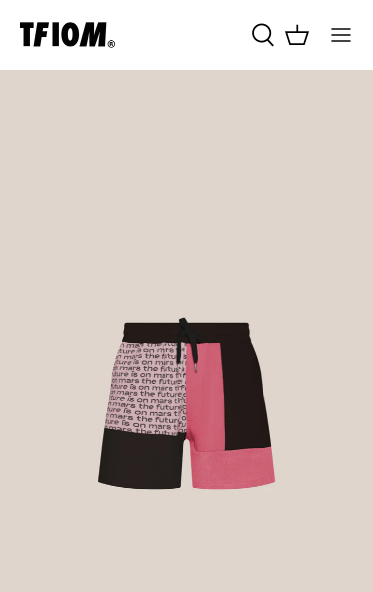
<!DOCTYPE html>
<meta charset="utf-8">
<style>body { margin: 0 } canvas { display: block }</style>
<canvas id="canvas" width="373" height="592"></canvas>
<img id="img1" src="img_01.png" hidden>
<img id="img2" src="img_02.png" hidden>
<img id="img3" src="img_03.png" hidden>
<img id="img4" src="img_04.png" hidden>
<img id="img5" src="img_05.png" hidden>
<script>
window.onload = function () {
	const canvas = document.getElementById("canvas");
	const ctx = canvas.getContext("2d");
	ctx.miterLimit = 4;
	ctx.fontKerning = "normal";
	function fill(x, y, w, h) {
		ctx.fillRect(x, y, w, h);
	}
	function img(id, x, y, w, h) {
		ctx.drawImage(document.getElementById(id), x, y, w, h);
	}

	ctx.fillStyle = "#FFFFFF";
	fill(0, 0, 373, 592);
	img("img1", 20, 22, 95, 26);
	img("img2", 252, 23, 22, 24);
	img("img3", 285, 24, 24, 21);
	img("img4", 331, 28, 20, 14);
	img("img5", 0, 70, 373, 522);
};
</script>
